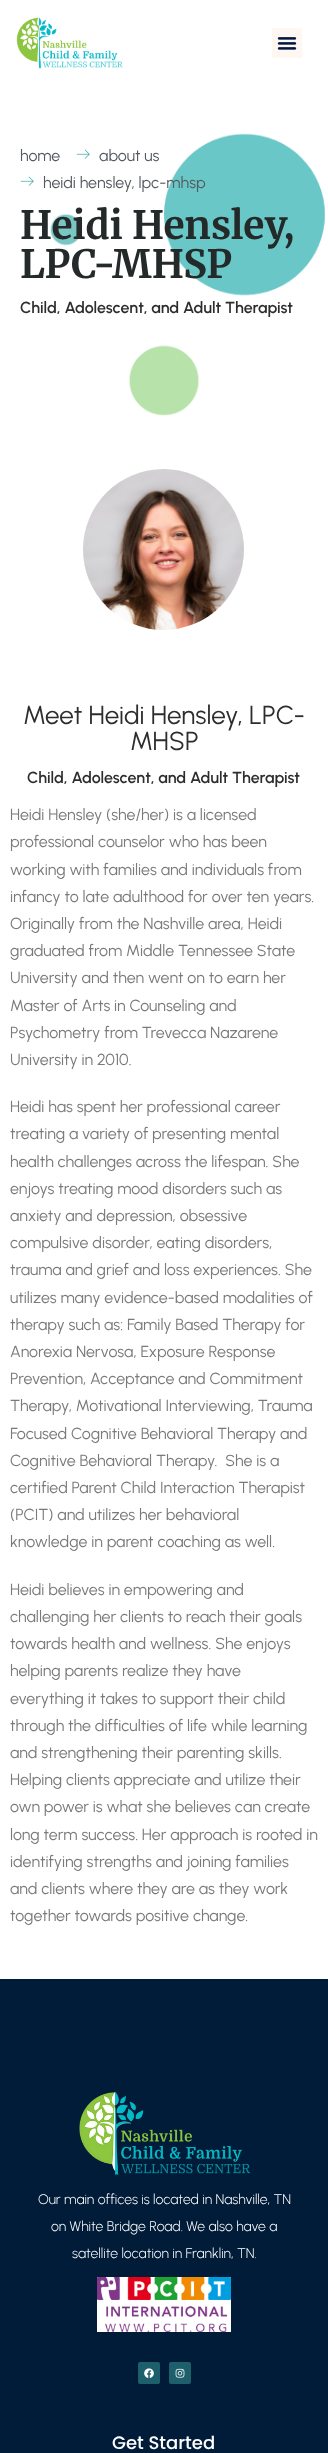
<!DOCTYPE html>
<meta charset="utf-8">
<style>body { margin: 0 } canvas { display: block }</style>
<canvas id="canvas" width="328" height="2453"></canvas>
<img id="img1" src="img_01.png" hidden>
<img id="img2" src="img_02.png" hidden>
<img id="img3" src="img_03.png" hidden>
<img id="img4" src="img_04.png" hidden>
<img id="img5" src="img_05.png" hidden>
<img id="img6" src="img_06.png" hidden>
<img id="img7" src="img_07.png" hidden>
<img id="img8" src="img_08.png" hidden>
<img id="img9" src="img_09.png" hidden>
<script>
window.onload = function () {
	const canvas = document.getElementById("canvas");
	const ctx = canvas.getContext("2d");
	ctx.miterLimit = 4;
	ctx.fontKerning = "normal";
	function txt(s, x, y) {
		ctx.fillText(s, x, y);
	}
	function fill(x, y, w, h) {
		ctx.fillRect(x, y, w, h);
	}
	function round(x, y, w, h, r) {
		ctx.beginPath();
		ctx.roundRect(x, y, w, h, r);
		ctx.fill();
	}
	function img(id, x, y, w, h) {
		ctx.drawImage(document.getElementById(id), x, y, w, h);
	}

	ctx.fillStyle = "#FFFFFF";
	fill(0, 0, 328, 2453);
	img("img1", 16, 17, 107, 52);
	ctx.fillStyle = "#FFF7F1";
	fill(272, 28, 30, 30);
	img("img2", 277, 37, 20, 13);
	img("img3", 50, 133, 276, 283);
	img("img4", 76, 149, 14, 10);
	img("img4", 20, 176, 14, 10);
	img("img5", 83, 469, 161, 161);
	ctx.fillStyle = "#001C38";
	fill(0, 1979, 328, 474);
	img("img6", 79, 2091, 172, 84);
	img("img7", 97, 2277, 134, 55);
	ctx.fillStyle = "#1D5F6B";
	round(138, 2362, 22, 22, 2);
	img("img8", 144, 2368, 10, 10);
	round(169, 2362, 22, 22, 2);
	img("img9", 175, 2368, 10, 10);
	ctx.font = "16px Urbanist";
	ctx.fillStyle = "#54595F";
	txt("home", 20, 161);
	txt("about us", 99, 161);
	txt("heidi hensley, lpc-mhsp", 43, 188);
	ctx.font = "bold 39px Merriweather";
	ctx.fillStyle = "#232A29";
	txt("Heidi Hensley,", 20, 239);
	txt("LPC-MHSP", 20, 278);
	ctx.font = "600 16px Urbanist";
	ctx.fillStyle = "#2C2D2D";
	txt("Child, Adolescent, and Adult Therapist", 20, 313);
	ctx.font = "26px Urbanist";
	txt("Meet Heidi Hensley, LPC-", 23, 724);
	txt("MHSP", 130, 750);
	ctx.font = "600 16px Urbanist";
	txt("Child, Adolescent, and Adult Therapist", 27, 783);
	ctx.font = "16px Urbanist";
	ctx.fillStyle = "#7A7A7A";
	txt("Heidi Hensley (she/her) is a licensed", 10, 820);
	txt("professional counselor who has been", 10, 847);
	txt("working with families and individuals from", 10, 875);
	txt("infancy to late adulthood for over ten years.", 10, 902);
	txt("Originally from the Nashville area, Heidi", 10, 929);
	txt("graduated from Middle Tennessee State", 10, 956);
	txt("University and then went on to earn her", 10, 983);
	txt("Master of Arts in Counseling and", 10, 1011);
	txt("Psychometry from Trevecca Nazarene", 10, 1038);
	txt("University in 2010.", 10, 1065);
	txt("Heidi has spent her professional career", 10, 1112);
	txt("treating a variety of presenting mental", 10, 1139);
	txt("health challenges across the lifespan. She", 10, 1167);
	txt("enjoys treating mood disorders such as", 10, 1194);
	txt("anxiety and depression, obsessive", 10, 1221);
	txt("compulsive disorder, eating disorders,", 10, 1248);
	txt("trauma and grief and loss experiences. She", 10, 1275);
	txt("utilizes many evidence-based modalities of", 10, 1303);
	txt("therapy such as: Family Based Therapy for", 10, 1330);
	txt("Anorexia Nervosa, Exposure Response", 10, 1357);
	txt("Prevention, Acceptance and Commitment", 10, 1384);
	txt("Therapy, Motivational Interviewing, Trauma", 10, 1411);
	txt("Focused Cognitive Behavioral Therapy and", 10, 1439);
	txt("Cognitive Behavioral Therapy.  She is a", 10, 1466);
	txt("certified Parent Child Interaction Therapist", 10, 1493);
	txt("(PCIT) and utilizes her behavioral", 10, 1520);
	txt("knowledge in parent coaching as well.", 10, 1547);
	txt("Heidi believes in empowering and", 10, 1595);
	txt("challenging her clients to reach their goals", 10, 1622);
	txt("towards health and wellness. She enjoys", 10, 1649);
	txt("helping parents realize they have", 10, 1676);
	txt("everything it takes to support their child", 10, 1704);
	txt("through the difficulties of life while learning", 10, 1731);
	txt("and strengthening their parenting skills.", 10, 1758);
	txt("Helping clients appreciate and utilize their", 10, 1785);
	txt("own power is what she believes can create", 10, 1812);
	txt("long term success. Her approach is rooted in", 10, 1840);
	txt("identifying strengths and joining families", 10, 1867);
	txt("and clients where they are as they work", 10, 1894);
	txt("together towards positive change.", 10, 1921);
	ctx.font = "300 14px Urbanist";
	ctx.fillStyle = "#FFFFFF";
	txt("Our main offices is located in Nashville, TN", 38, 2204);
	txt("on White Bridge Road. We also have a", 51, 2231);
	txt("satellite location in Franklin, TN.", 72, 2258);
	ctx.font = "500 18px Poppins";
	txt("Get Started", 112, 2449);
};
</script>
